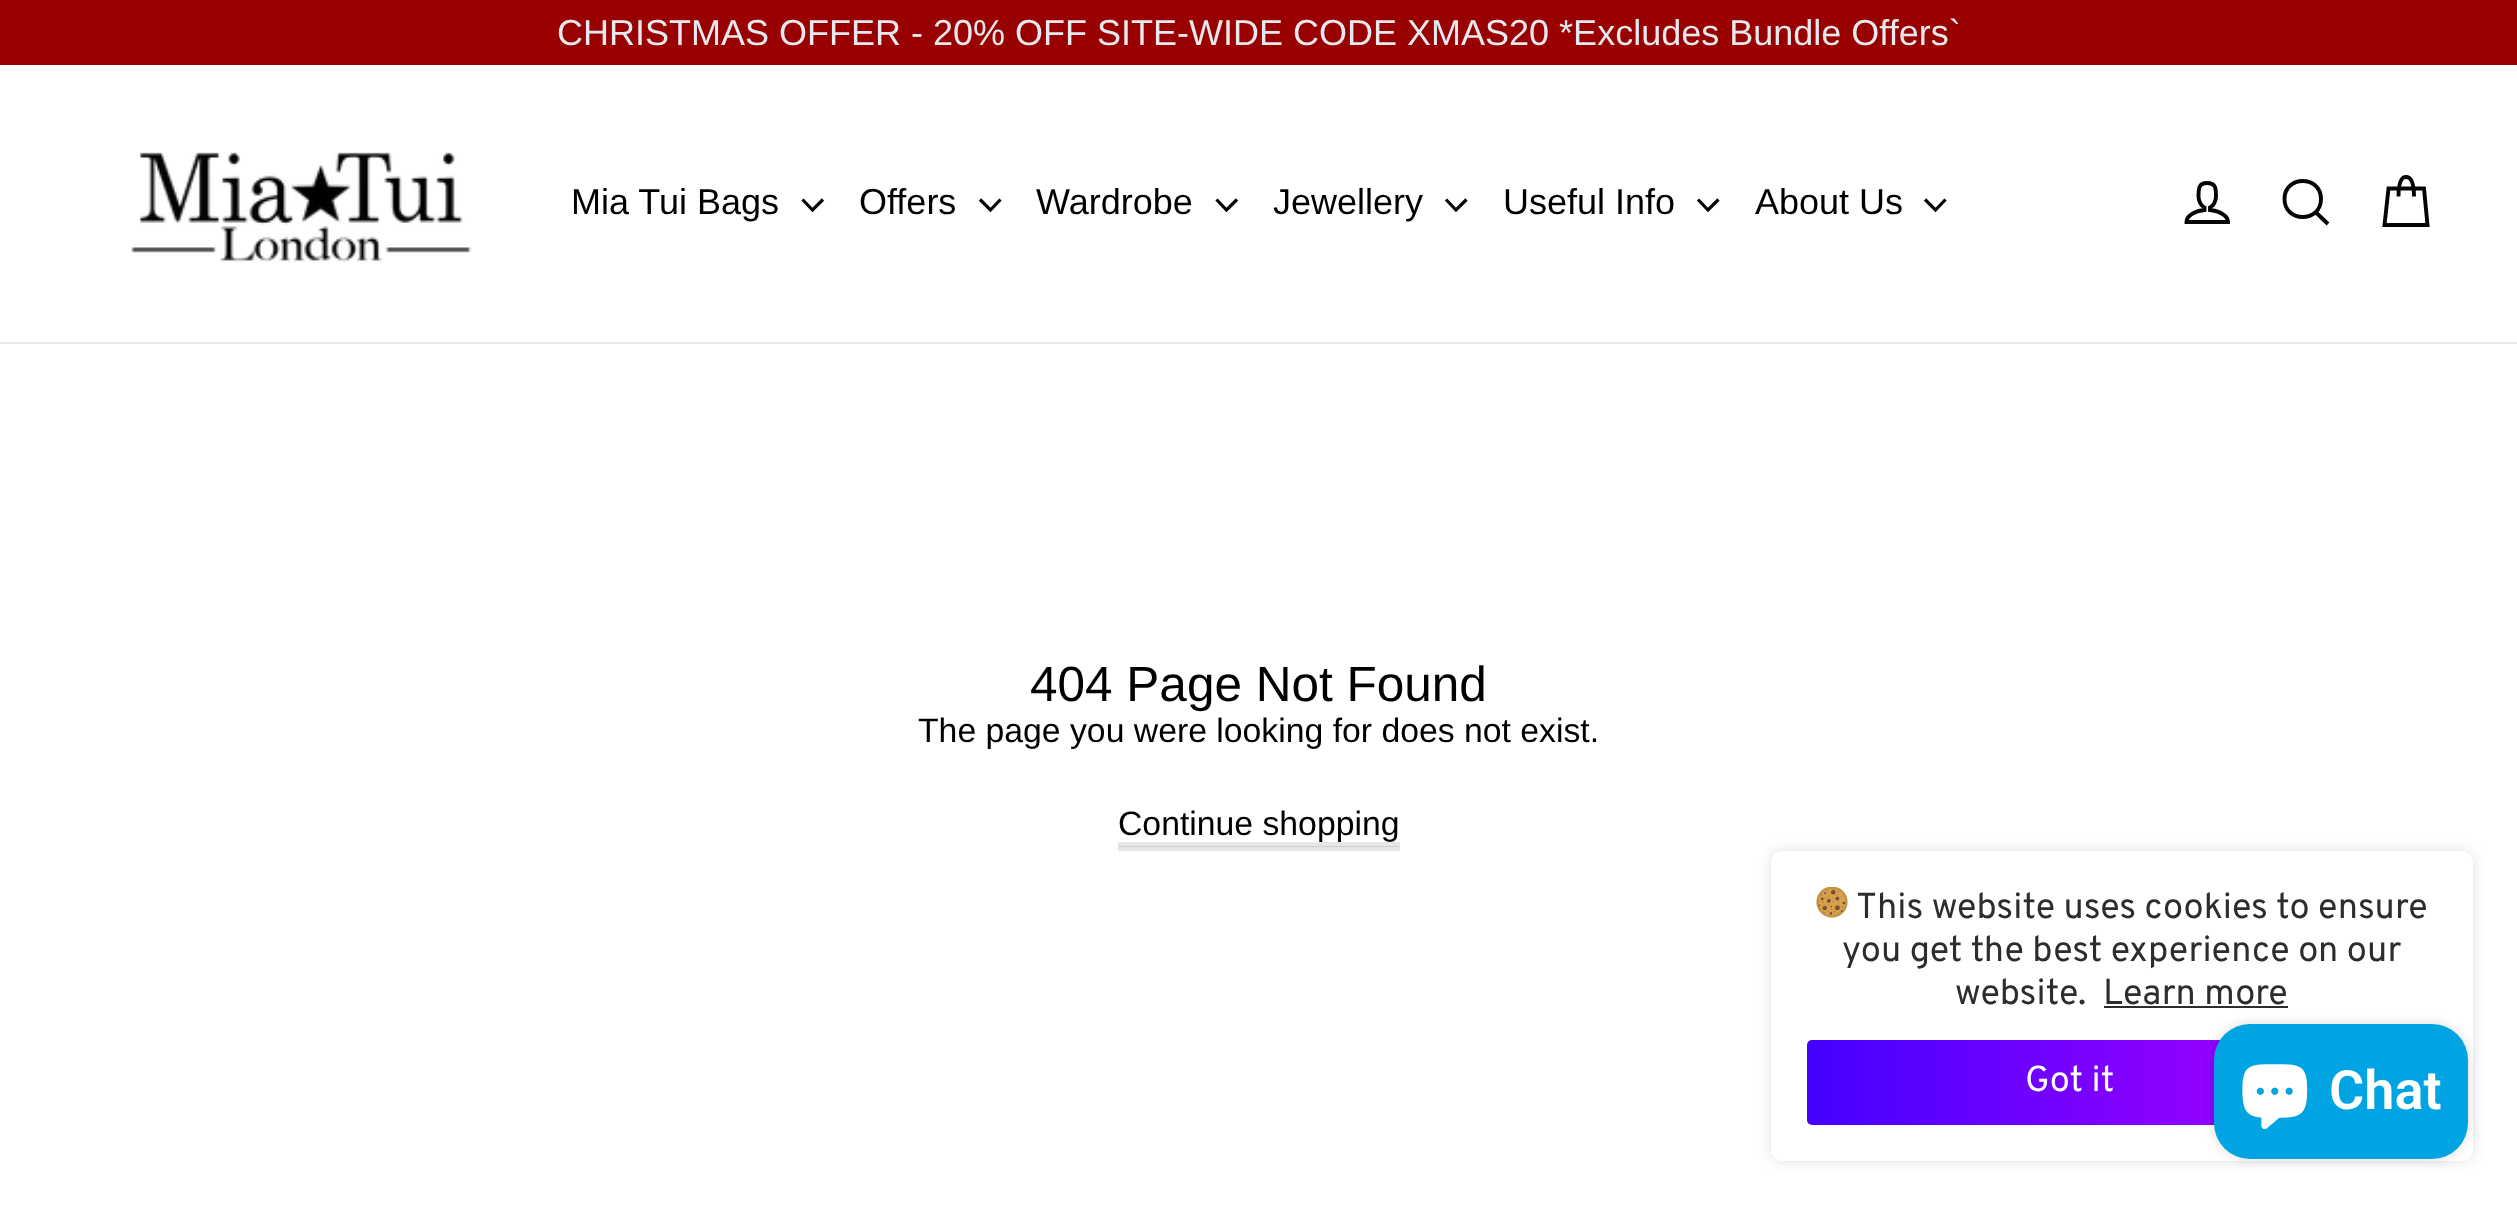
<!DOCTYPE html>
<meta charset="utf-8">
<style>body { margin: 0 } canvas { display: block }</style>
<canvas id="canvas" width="2517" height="1205"></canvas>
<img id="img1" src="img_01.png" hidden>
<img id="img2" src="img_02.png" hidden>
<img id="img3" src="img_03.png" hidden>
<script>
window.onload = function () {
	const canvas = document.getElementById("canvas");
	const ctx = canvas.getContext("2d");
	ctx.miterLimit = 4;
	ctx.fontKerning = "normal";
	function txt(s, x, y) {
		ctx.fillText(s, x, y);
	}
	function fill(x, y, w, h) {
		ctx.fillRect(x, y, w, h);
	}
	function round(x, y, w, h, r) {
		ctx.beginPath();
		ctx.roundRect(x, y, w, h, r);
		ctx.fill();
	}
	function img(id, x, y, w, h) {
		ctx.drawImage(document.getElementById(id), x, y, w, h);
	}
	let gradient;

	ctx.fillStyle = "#FFFFFF";
	fill(0, 0, 2517, 1205);
	ctx.fillStyle = "#E6E6E6";
	fill(1118, 847, 282, 4);
	ctx.fillStyle = "#990000";
	fill(0, 0, 2517, 65);
	ctx.fillStyle = "#E8E8E1";
	fill(0, 342, 2517, 2);
	img("img1", 131, 152, 341, 111);
	ctx.beginPath();
	ctx.moveTo(802.5, 199.5);
	ctx.lineTo(812.5, 210);
	ctx.lineTo(823, 199.5);
	ctx.strokeStyle = "#040404";
	ctx.lineWidth = 3.2;
	ctx.stroke();
	ctx.beginPath();
	ctx.moveTo(980, 199.5);
	ctx.lineTo(990.5, 210);
	ctx.lineTo(1000.5, 199.5);
	ctx.stroke();
	ctx.beginPath();
	ctx.moveTo(1216.5, 199.5);
	ctx.lineTo(1226.5, 210);
	ctx.lineTo(1237, 199.5);
	ctx.stroke();
	ctx.beginPath();
	ctx.moveTo(1446, 199.5);
	ctx.lineTo(1456, 210);
	ctx.lineTo(1466.5, 199.5);
	ctx.stroke();
	ctx.beginPath();
	ctx.moveTo(1698, 199.5);
	ctx.lineTo(1708, 210);
	ctx.lineTo(1718.5, 199.5);
	ctx.stroke();
	ctx.beginPath();
	ctx.moveTo(1925, 199.5);
	ctx.lineTo(1935.5, 210);
	ctx.lineTo(1945.5, 199.5);
	ctx.stroke();
	ctx.beginPath();
	ctx.moveTo(2210, 210);
	ctx.lineTo(2210, 207.5);
	ctx.bezierCurveTo(2213.5, 206, 2216, 201, 2216, 196.5);
	ctx.bezierCurveTo(2216, 189, 2216, 183, 2207, 183);
	ctx.bezierCurveTo(2198.5, 183, 2198.5, 189, 2198.5, 196.5);
	ctx.bezierCurveTo(2198.5, 201, 2201, 206, 2204.5, 207.5);
	ctx.lineTo(2204.5, 210);
	ctx.bezierCurveTo(2194.5, 211, 2186.5, 216, 2186.5, 222);
	ctx.lineTo(2228, 222);
	ctx.bezierCurveTo(2228, 216, 2220, 211, 2210, 210);
	ctx.closePath();
	ctx.lineWidth = 3.9;
	ctx.stroke();
	ctx.beginPath();
	ctx.moveTo(2321, 199);
	ctx.bezierCurveTo(2321, 223, 2284.5, 223, 2284.5, 199);
	ctx.bezierCurveTo(2284.5, 175, 2321, 175, 2321, 199);
	ctx.closePath();
	ctx.moveTo(2328, 224);
	ctx.lineTo(2316, 212.5);
	ctx.stroke();
	ctx.beginPath();
	ctx.moveTo(2398.5, 196.5);
	ctx.bezierCurveTo(2398.5, 181, 2402, 177, 2406, 177);
	ctx.bezierCurveTo(2410.5, 177, 2414, 181, 2414, 196.5);
	ctx.moveTo(2388.5, 188.5);
	ctx.lineTo(2424, 188.5);
	ctx.lineTo(2427.5, 225);
	ctx.lineTo(2384.5, 225);
	ctx.closePath();
	ctx.stroke();
	ctx.fillStyle = "#E6E6E6";
	fill(1118, 842, 282, 4);
	ctx.fillStyle = "#CFCFCF";
	fill(1118, 846, 282, 1);
	ctx.save();
	ctx.beginPath();
	ctx.moveTo(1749, 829);
	ctx.lineTo(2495, 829);
	ctx.lineTo(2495, 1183);
	ctx.lineTo(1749, 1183);
	ctx.closePath();
	ctx.moveTo(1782, 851);
	ctx.lineTo(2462, 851);
	ctx.bezierCurveTo(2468, 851, 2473, 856, 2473, 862);
	ctx.lineTo(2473, 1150);
	ctx.bezierCurveTo(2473, 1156, 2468, 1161, 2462, 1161);
	ctx.lineTo(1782, 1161);
	ctx.bezierCurveTo(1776, 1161, 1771, 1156, 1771, 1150);
	ctx.lineTo(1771, 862);
	ctx.bezierCurveTo(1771, 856, 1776, 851, 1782, 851);
	ctx.closePath();
	ctx.clip("evenodd");
	ctx.fillStyle = "rgba(0, 0, 0, 0.12)";
	ctx.filter = "blur(7px)";
	ctx.beginPath();
	ctx.roundRect(1771, 851, 702, 310, 11);
	ctx.fill();
	ctx.filter = "none";
	ctx.restore();
	img("img2", 1816, 887, 32, 31);
	ctx.fillStyle = "#2D2D2D";
	fill(2104, 1006, 184, 2);
	gradient = ctx.createLinearGradient(1807, 1082, 2333, 1082);
	gradient.addColorStop(0, "#4401FF");
	gradient.addColorStop(1, "#A901FF");
	ctx.fillStyle = gradient;
	round(1807, 1040, 526, 85, 5);
	ctx.fillStyle = "rgba(0, 0, 0, 0.15)";
	ctx.filter = "blur(5.5px)";
	ctx.beginPath();
	ctx.roundRect(2214, 1024, 254, 135, 36);
	ctx.fill();
	ctx.filter = "none";
	ctx.fillStyle = "#00A4E2";
	round(2214, 1024, 254, 135, 36);
	img("img3", 2242, 1064, 66, 65);
	ctx.font = "36px Liberation Sans";
	ctx.fillStyle = "#E6E9ED";
	txt("CHRISTMAS OFFER - 20% OFF SITE-WIDE CODE XMAS20 *Excludes Bundle Offers`", 557, 45);
	ctx.fillStyle = "#000000";
	txt("Mia Tui Bags", 571, 214);
	txt("Offers", 859, 214);
	txt("Wardrobe", 1036, 214);
	txt("Jewellery", 1273, 214);
	txt("Useful Info", 1503, 214);
	txt("About Us", 1755, 214);
	ctx.font = "49.5px Liberation Sans";
	txt("404 Page Not Found", 1030, 701);
	ctx.font = "33.75px Liberation Sans";
	txt("The page you were looking for does not exist.", 918, 742);
	txt("Continue shopping", 1118, 835);
	ctx.font = "36px Overpass";
	ctx.fillStyle = "#2D2D2D";
	txt("This website uses cookies to ensure", 1856, 918);
	txt("you get the best experience on our", 1842, 961);
	txt("website.", 1955, 1004);
	txt("Learn more", 2103, 1004);
	ctx.fillStyle = "#FFFFFF";
	txt("Got it", 2025, 1091);
	ctx.font = "600 54px Roboto";
	txt("Chat", 2329, 1109);
};
</script>
